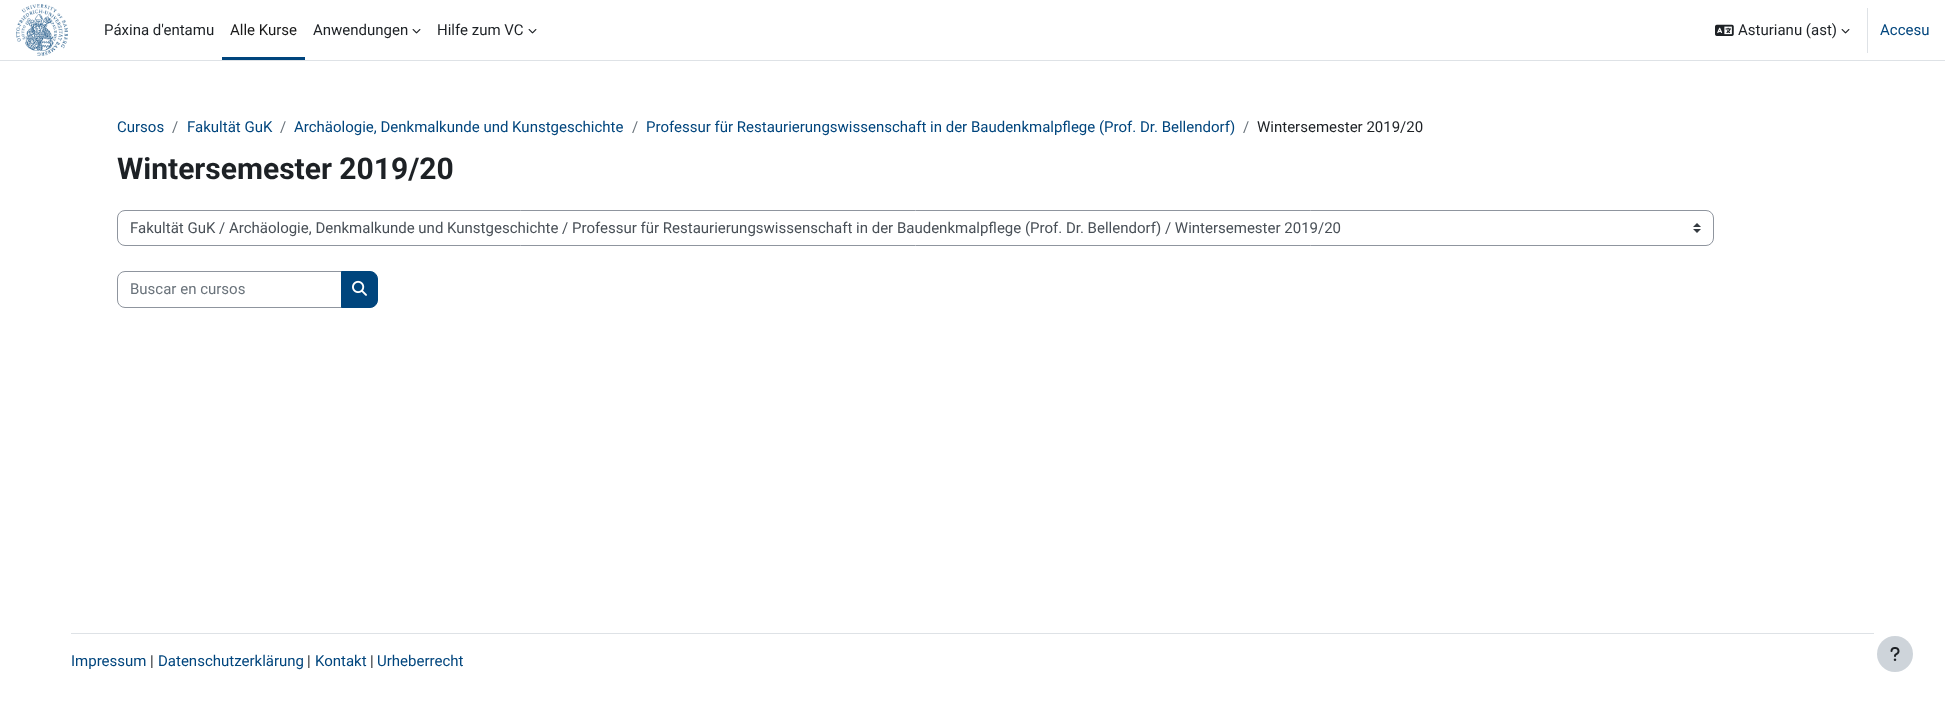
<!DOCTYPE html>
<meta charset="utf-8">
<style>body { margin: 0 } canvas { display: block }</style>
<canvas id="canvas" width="1945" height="704"></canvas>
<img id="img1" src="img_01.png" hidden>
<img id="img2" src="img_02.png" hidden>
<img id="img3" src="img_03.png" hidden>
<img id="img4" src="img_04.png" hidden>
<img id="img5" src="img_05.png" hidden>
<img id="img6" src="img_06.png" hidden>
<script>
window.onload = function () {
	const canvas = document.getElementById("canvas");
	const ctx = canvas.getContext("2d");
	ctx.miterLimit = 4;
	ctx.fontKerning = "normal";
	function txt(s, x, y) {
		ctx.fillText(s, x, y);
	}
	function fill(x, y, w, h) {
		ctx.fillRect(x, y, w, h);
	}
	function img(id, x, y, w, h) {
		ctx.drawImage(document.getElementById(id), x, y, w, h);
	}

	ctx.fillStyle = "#FFFFFF";
	fill(0, 0, 1945, 704);
	ctx.fillStyle = "#DEE2E6";
	fill(0, 60, 1945, 1);
	img("img1", 16, 4, 52, 52);
	ctx.fillStyle = "#00457D";
	fill(222, 57, 83, 3);
	img("img2", 412, 29, 9, 5);
	img("img2", 528, 29, 9, 5);
	img("img3", 1715, 24, 19, 12);
	img("img2", 1841, 29, 9, 5);
	ctx.fillStyle = "#DEE2E6";
	fill(1867, 8, 1, 45);
	img("img4", 1693, 223, 8, 10);
	ctx.beginPath();
	ctx.roundRect(117.5, 210.5, 1596, 35, 7.5);
	ctx.strokeStyle = "#8F959E";
	ctx.stroke();
	ctx.beginPath();
	ctx.roundRect(117.5, 271.5, 224, 36, [7.5, 0, 0, 7.5]);
	ctx.stroke();
	ctx.fillStyle = "#00457D";
	ctx.beginPath();
	ctx.roundRect(341.5, 271.5, 36, 36, [0, 7.5, 7.5, 0]);
	ctx.fill();
	ctx.strokeStyle = "#00457D";
	ctx.stroke();
	img("img5", 352, 280, 15, 16);
	ctx.fillStyle = "#DEE2E6";
	fill(71, 633, 1803, 1);
	ctx.fillStyle = "#CED4DA";
	ctx.beginPath();
	ctx.arc(1895, 654, 18, 0, Math.PI * 2);
	ctx.fill();
	img("img6", 1890, 647, 10, 14);
	ctx.font = "15px Roboto";
	ctx.fillStyle = "#1D2125";
	txt("Páxina d'entamu", 104, 35);
	ctx.fillStyle = "#1A1A1A";
	txt("Alle Kurse", 230, 35);
	ctx.fillStyle = "#1D2125";
	txt("Anwendungen", 313, 35);
	txt("Hilfe zum VC", 437, 35);
	txt("Asturianu (ast)", 1738, 35);
	ctx.fillStyle = "#00457D";
	txt("Accesu", 1880, 35);
	txt("Cursos", 117, 132);
	ctx.fillStyle = "#6A737B";
	txt("/", 172, 132);
	ctx.fillStyle = "#00457D";
	txt("Fakultät GuK", 187, 132);
	ctx.fillStyle = "#6A737B";
	txt("/", 280, 132);
	ctx.fillStyle = "#00457D";
	txt("Archäologie, Denkmalkunde und Kunstgeschichte", 294, 132);
	ctx.fillStyle = "#6A737B";
	txt("/", 632, 132);
	ctx.fillStyle = "#00457D";
	txt("Professur für Restaurierungswissenschaft in der Baudenkmalpflege (Prof. Dr. Bellendorf)", 646, 132);
	ctx.fillStyle = "#6A737B";
	txt("/", 1243, 132);
	ctx.fillStyle = "#1D2125";
	txt("Wintersemester 2019/20", 1257, 132);
	ctx.font = "bold 30px Roboto";
	txt("Wintersemester 2019/20", 117, 179);
	ctx.font = "15px Roboto";
	ctx.fillStyle = "#495057";
	txt("Fakultät GuK / Archäologie, Denkmalkunde und Kunstgeschichte / Professur für Restaurierungswissenschaft in der Baudenkmalpflege (Prof. Dr. Bellendorf) / Wintersemester 2019/20", 130, 233);
	ctx.fillStyle = "#6A737B";
	txt("Buscar en cursos", 130, 294);
	ctx.fillStyle = "#00457D";
	txt("Impressum", 71, 666);
	ctx.fillStyle = "#1D2125";
	txt("|", 150, 666);
	ctx.fillStyle = "#00457D";
	txt("Datenschutzerklärung", 158, 666);
	ctx.fillStyle = "#1D2125";
	txt("|", 307, 666);
	ctx.fillStyle = "#00457D";
	txt("Kontakt", 315, 666);
	ctx.fillStyle = "#1D2125";
	txt("|", 370, 666);
	ctx.fillStyle = "#00457D";
	txt("Urheberrecht", 377, 666);
};
</script>
